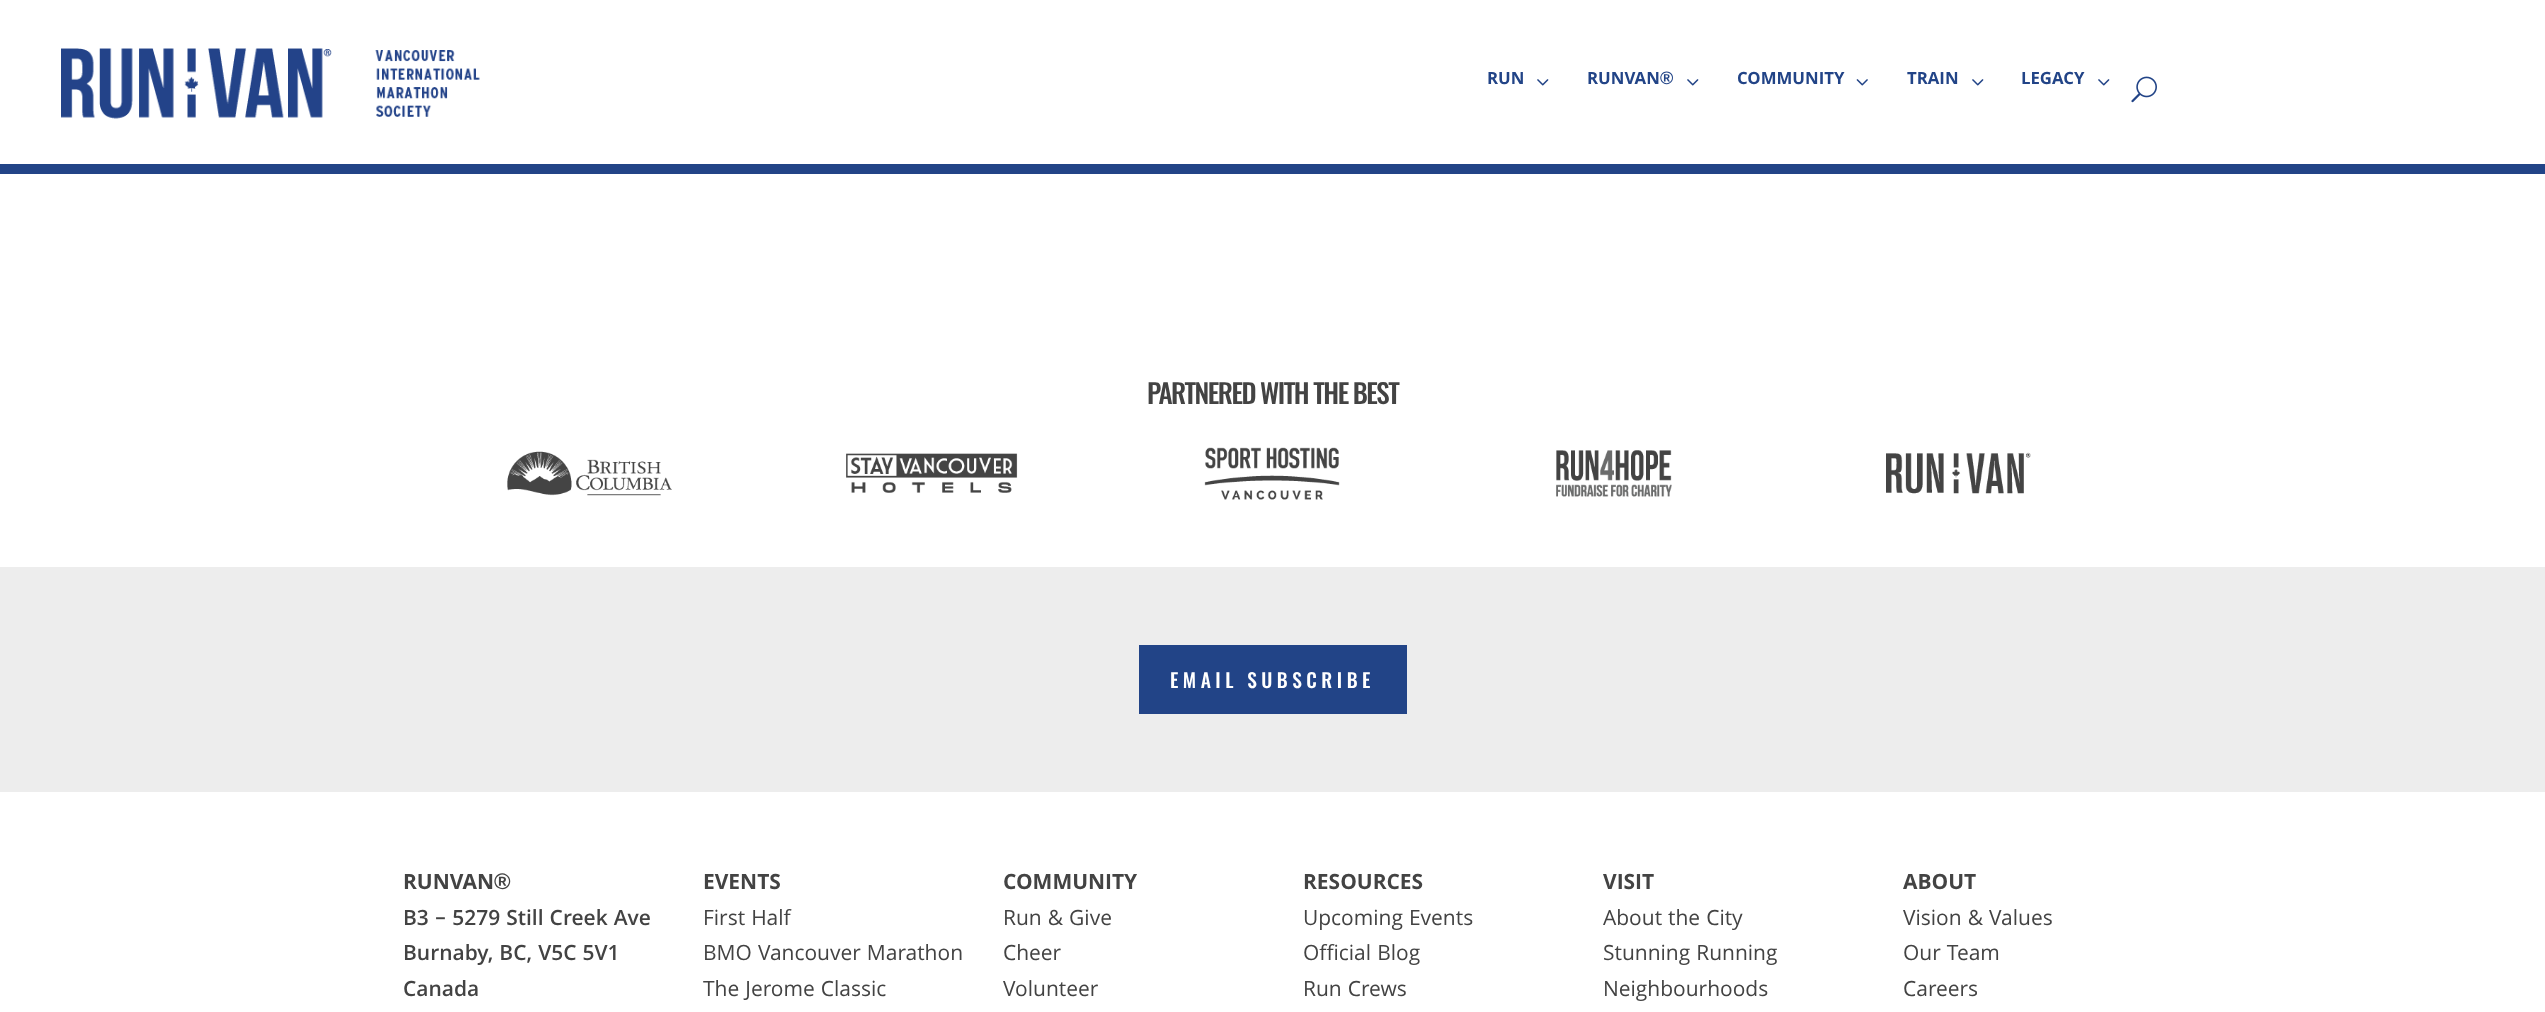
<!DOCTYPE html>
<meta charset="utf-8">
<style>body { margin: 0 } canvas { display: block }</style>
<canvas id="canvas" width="2545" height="1012"></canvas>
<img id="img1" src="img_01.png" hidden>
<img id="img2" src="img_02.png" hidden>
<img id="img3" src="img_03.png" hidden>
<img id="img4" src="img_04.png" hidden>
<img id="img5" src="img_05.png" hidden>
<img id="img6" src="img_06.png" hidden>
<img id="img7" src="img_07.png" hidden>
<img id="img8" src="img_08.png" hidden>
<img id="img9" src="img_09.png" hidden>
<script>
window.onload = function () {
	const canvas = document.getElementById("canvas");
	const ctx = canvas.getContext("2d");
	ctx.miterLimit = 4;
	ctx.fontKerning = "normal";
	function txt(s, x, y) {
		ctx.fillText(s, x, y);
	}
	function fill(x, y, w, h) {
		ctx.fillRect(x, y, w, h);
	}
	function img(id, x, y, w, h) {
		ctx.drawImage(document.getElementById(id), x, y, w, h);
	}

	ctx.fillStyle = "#FFFFFF";
	fill(0, 0, 2545, 1012);
	ctx.fillStyle = "#224487";
	fill(0, 164, 2545, 10);
	img("img1", 61, 48, 419, 71);
	img("img2", 1537, 79, 12, 7);
	img("img2", 1687, 79, 12, 7);
	img("img3", 1856, 79, 12, 7);
	img("img2", 1972, 79, 12, 7);
	img("img2", 2098, 79, 12, 7);
	img("img4", 2131, 76, 26, 27);
	img("img5", 507, 451, 165, 45);
	img("img6", 846, 453, 172, 40);
	img("img7", 1204, 447, 136, 53);
	img("img8", 1556, 450, 116, 47);
	img("img9", 1886, 452, 145, 42);
	ctx.fillStyle = "#EDEDED";
	fill(0, 567, 2545, 225);
	ctx.fillStyle = "#224487";
	fill(1139, 645, 268, 69);
	ctx.font = "bold 18px Khula";
	txt("RUN", 1487, 84);
	txt("RUNVAN", 1587, 84);
	ctx.font = "bold 18px Liberation Sans";
	txt("®", 1660, 84);
	ctx.font = "bold 18px Khula";
	txt("COMMUNITY", 1737, 84);
	txt("TRAIN", 1907, 84);
	txt("LEGACY", 2021, 84);
	ctx.letterSpacing = "-1.5px";
	ctx.font = "500 27px Oswald";
	ctx.fillStyle = "#434343";
	txt("PARTNERED WITH THE BEST", 1147, 404);
	ctx.letterSpacing = "4.5px";
	ctx.font = "500 19.5px Oswald";
	ctx.fillStyle = "#FFFFFF";
	txt("EMAIL SUBSCRIBE", 1170, 688);
	ctx.letterSpacing = "0px";
	ctx.font = "bold 22.5px Khula";
	ctx.fillStyle = "#434343";
	txt("RUNVAN", 403, 889);
	ctx.font = "bold 22.5px Liberation Sans";
	txt("®", 494, 889);
	ctx.font = "600 22.5px Khula";
	txt("B3 – 5279 Still Creek Ave", 403, 925);
	txt("Burnaby, BC, V5C 5V1", 403, 960);
	txt("Canada", 403, 996);
	ctx.font = "bold 22.5px Khula";
	txt("EVENTS", 703, 889);
	ctx.font = "22.5px Khula";
	txt("First Half", 703, 925);
	txt("BMO Vancouver Marathon", 703, 960);
	txt("The Jerome Classic", 703, 996);
	ctx.font = "bold 22.5px Khula";
	txt("COMMUNITY", 1003, 889);
	ctx.font = "22.5px Khula";
	txt("Run & Give", 1003, 925);
	txt("Cheer", 1003, 960);
	txt("Volunteer", 1003, 996);
	ctx.font = "bold 22.5px Khula";
	txt("RESOURCES", 1303, 889);
	ctx.font = "22.5px Khula";
	txt("Upcoming Events", 1303, 925);
	txt("Official Blog", 1303, 960);
	txt("Run Crews", 1303, 996);
	ctx.font = "bold 22.5px Khula";
	txt("VISIT", 1603, 889);
	ctx.font = "22.5px Khula";
	txt("About the City", 1603, 925);
	txt("Stunning Running", 1603, 960);
	txt("Neighbourhoods", 1603, 996);
	ctx.font = "bold 22.5px Khula";
	txt("ABOUT", 1903, 889);
	ctx.font = "22.5px Khula";
	txt("Vision & Values", 1903, 925);
	txt("Our Team", 1903, 960);
	txt("Careers", 1903, 996);
};
</script>
